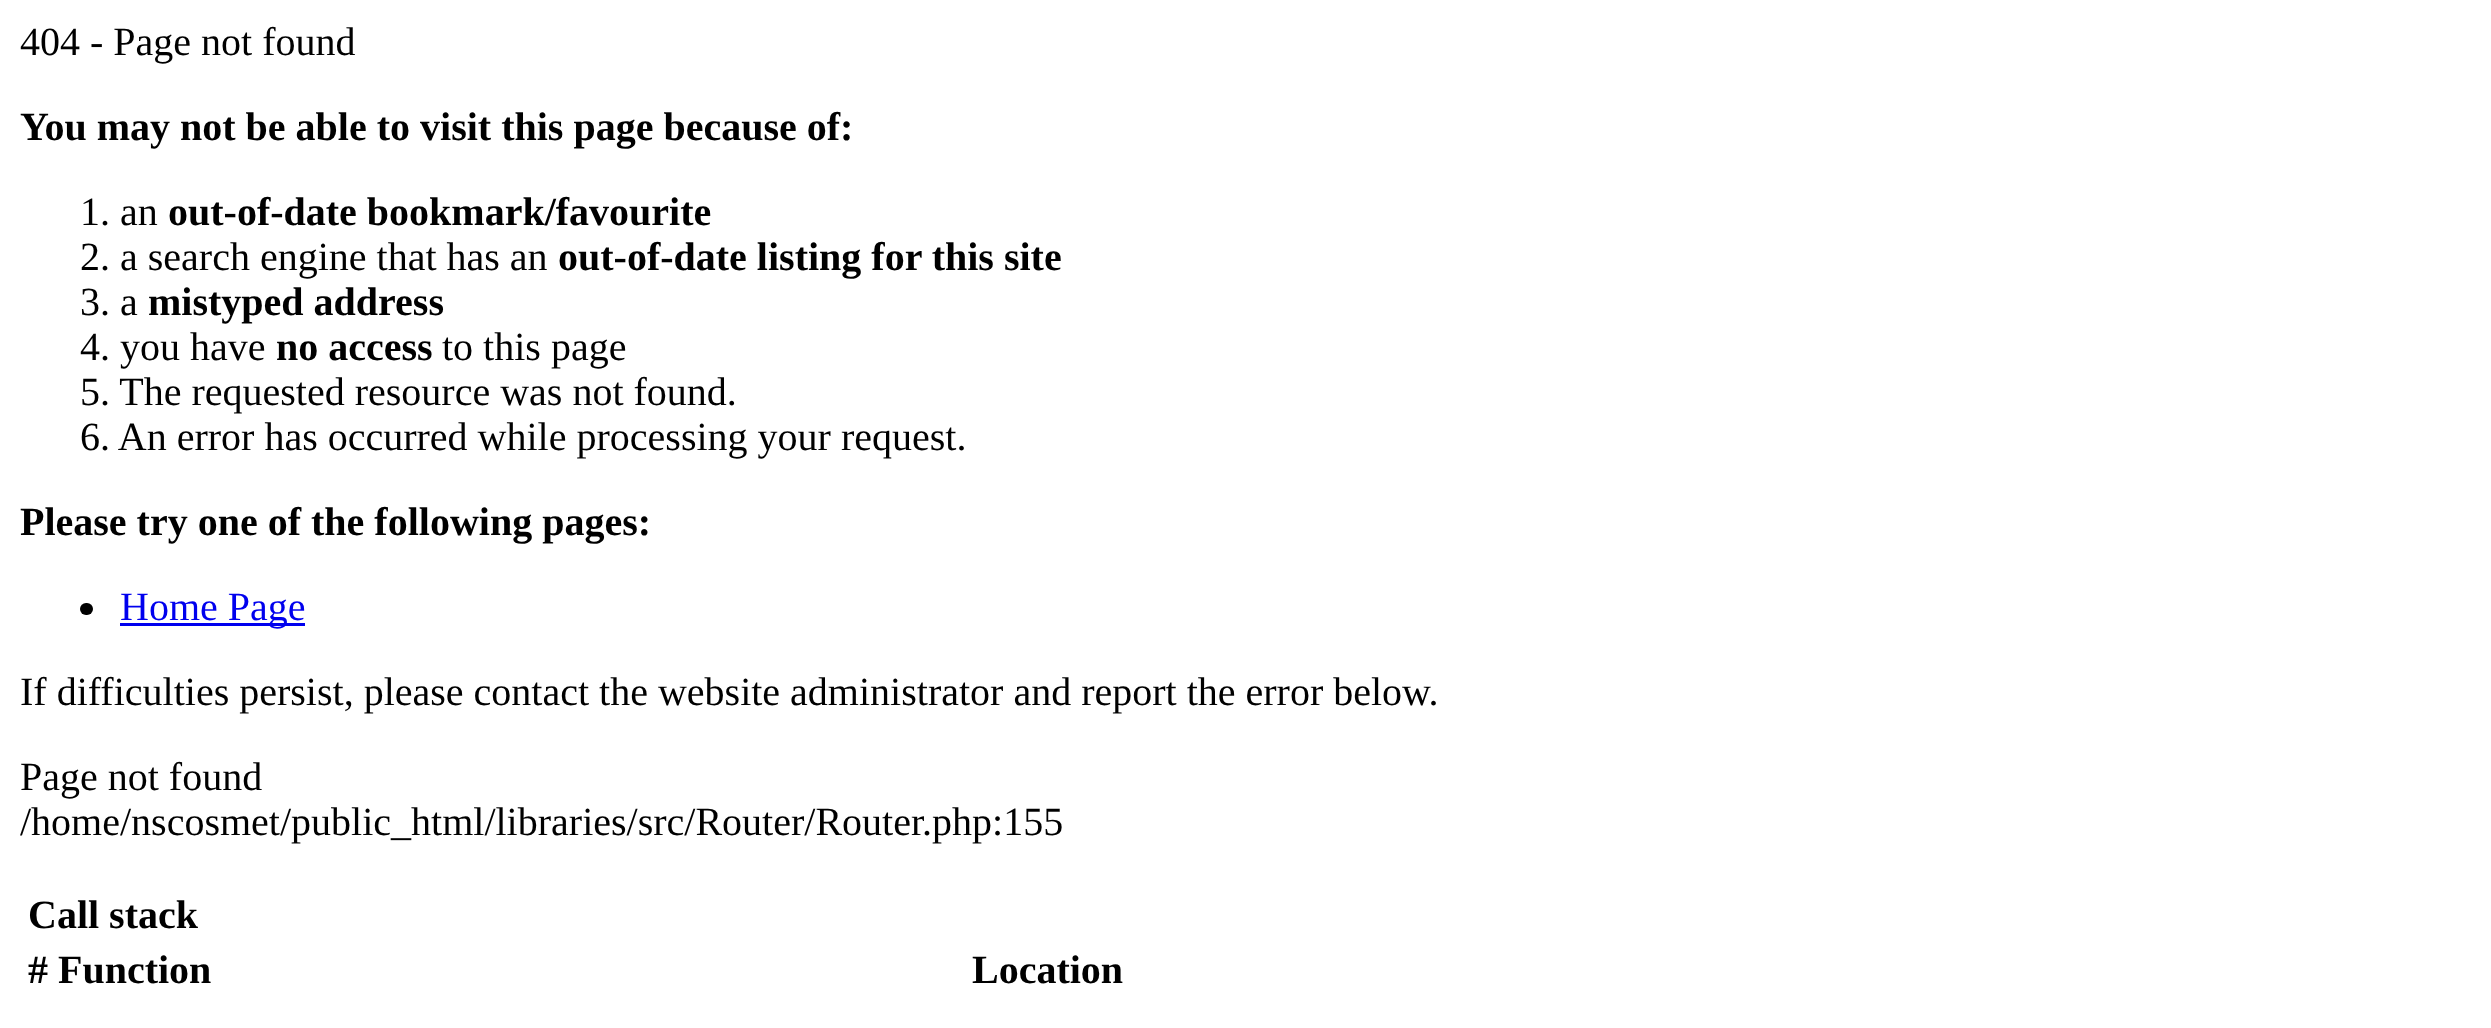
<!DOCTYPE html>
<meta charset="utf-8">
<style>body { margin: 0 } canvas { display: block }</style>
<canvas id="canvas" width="2491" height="1028"></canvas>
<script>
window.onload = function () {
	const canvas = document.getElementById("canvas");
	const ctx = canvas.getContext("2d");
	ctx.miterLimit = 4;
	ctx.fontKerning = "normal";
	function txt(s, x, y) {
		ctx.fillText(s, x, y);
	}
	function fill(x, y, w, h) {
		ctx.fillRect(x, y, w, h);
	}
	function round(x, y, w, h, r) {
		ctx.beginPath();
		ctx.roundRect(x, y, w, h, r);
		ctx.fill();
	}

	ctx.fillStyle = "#FFFFFF";
	fill(0, 0, 2491, 1028);
	ctx.fillStyle = "#000000";
	round(80, 603, 13, 12, 6);
	ctx.fillStyle = "#0000EE";
	fill(120, 623, 185, 3);
	ctx.font = "40px Liberation Serif";
	ctx.fillStyle = "#000000";
	txt("404 - Page not found", 20, 55);
	ctx.font = "bold 40px Liberation Serif";
	txt("You may not be able to visit this page because of:", 20, 140);
	ctx.font = "40px Liberation Serif";
	txt("1. an", 80, 225);
	ctx.font = "bold 40px Liberation Serif";
	txt("out-of-date bookmark/favourite", 168, 225);
	ctx.font = "40px Liberation Serif";
	txt("2. a search engine that has an", 80, 270);
	ctx.font = "bold 40px Liberation Serif";
	txt("out-of-date listing for this site", 558, 270);
	ctx.font = "40px Liberation Serif";
	txt("3. a", 80, 315);
	ctx.font = "bold 40px Liberation Serif";
	txt("mistyped address", 148, 315);
	ctx.font = "40px Liberation Serif";
	txt("4. you have", 80, 360);
	ctx.font = "bold 40px Liberation Serif";
	txt("no access", 276, 360);
	ctx.font = "40px Liberation Serif";
	txt("to this page", 442, 360);
	txt("5. The requested resource was not found.", 80, 405);
	txt("6. An error has occurred while processing your request.", 80, 450);
	ctx.font = "bold 40px Liberation Serif";
	txt("Please try one of the following pages:", 20, 535);
	ctx.font = "40px Liberation Serif";
	ctx.fillStyle = "#0000EE";
	txt("Home Page", 120, 620);
	ctx.fillStyle = "#000000";
	txt("If difficulties persist, please contact the website administrator and report the error below.", 20, 705);
	txt("Page not found", 20, 790);
	txt("/home/nscosmet/public_html/libraries/src/Router/Router.php:155", 20, 835);
	ctx.font = "bold 40px Liberation Serif";
	txt("Call stack", 28, 928);
	txt("# Function", 28, 983);
	txt("Location", 972, 983);
};
</script>
